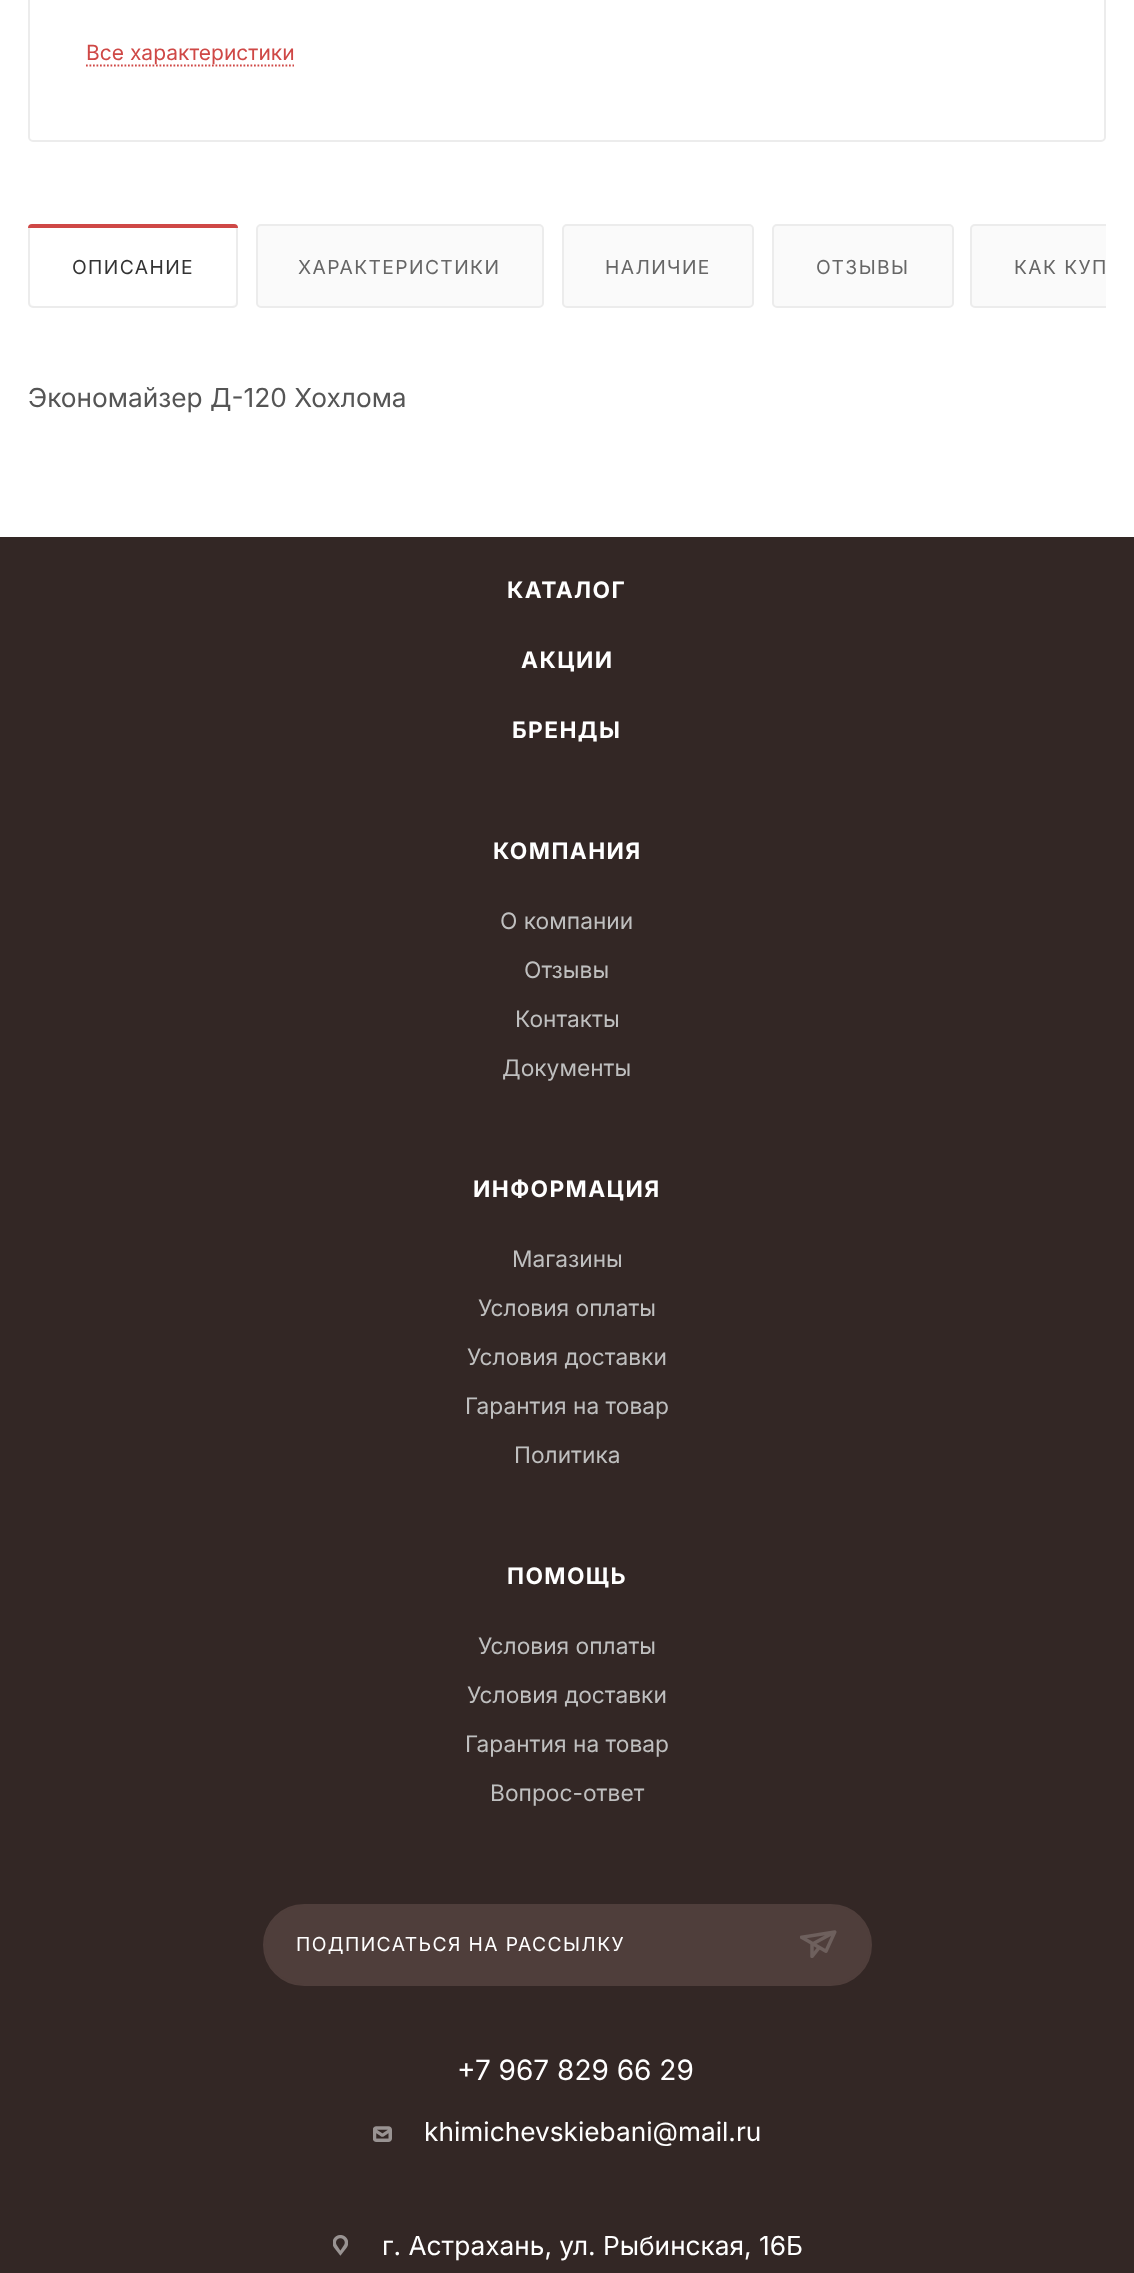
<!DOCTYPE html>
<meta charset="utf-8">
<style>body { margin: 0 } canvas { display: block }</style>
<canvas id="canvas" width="1134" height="2273"></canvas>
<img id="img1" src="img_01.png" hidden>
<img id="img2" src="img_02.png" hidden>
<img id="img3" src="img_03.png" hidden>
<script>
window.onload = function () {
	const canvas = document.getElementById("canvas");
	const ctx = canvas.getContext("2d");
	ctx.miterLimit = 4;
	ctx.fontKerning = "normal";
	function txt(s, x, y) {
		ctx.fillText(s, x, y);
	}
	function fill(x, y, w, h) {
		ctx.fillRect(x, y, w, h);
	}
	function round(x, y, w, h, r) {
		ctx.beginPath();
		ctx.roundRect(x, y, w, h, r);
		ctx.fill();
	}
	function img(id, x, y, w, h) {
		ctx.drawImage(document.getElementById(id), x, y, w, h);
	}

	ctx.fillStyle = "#FFFFFF";
	fill(0, 0, 1134, 2273);
	ctx.beginPath();
	ctx.roundRect(29, -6, 1076, 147, 4);
	ctx.strokeStyle = "#ECECEC";
	ctx.lineWidth = 2;
	ctx.stroke();
	ctx.beginPath();
	ctx.moveTo(86, 65.5);
	ctx.lineTo(294, 65.5);
	ctx.strokeStyle = "#CF4846";
	ctx.lineWidth = 1.8;
	ctx.setLineDash([1.75, 1.75]);
	ctx.stroke();
	ctx.fillStyle = "#FAFAFA";
	ctx.beginPath();
	ctx.roundRect(29, 225, 208, 82, 4);
	ctx.fill();
	ctx.strokeStyle = "#ECECEC";
	ctx.lineWidth = 2;
	ctx.setLineDash([]);
	ctx.stroke();
	ctx.fillStyle = "#FFFFFF";
	round(30, 226, 206, 80, 5);
	ctx.fillStyle = "#CF4846";
	ctx.beginPath();
	ctx.roundRect(28, 224, 210, 4, [4, 4, 0, 0]);
	ctx.fill();
	ctx.fillStyle = "#FAFAFA";
	ctx.beginPath();
	ctx.roundRect(257, 225, 286, 82, 4);
	ctx.fill();
	ctx.stroke();
	ctx.beginPath();
	ctx.roundRect(563, 225, 190, 82, 4);
	ctx.fill();
	ctx.stroke();
	ctx.beginPath();
	ctx.roundRect(773, 225, 180, 82, 4);
	ctx.fill();
	ctx.stroke();
	ctx.beginPath();
	ctx.roundRect(970, 224, 136, 84, [5, 0, 0, 5]);
	ctx.fill();
	ctx.save();
	ctx.beginPath();
	ctx.rect(28, 224, 1078, 84);
	ctx.clip();
	ctx.beginPath();
	ctx.roundRect(971, 225, 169, 82, 4);
	ctx.stroke();
	ctx.restore();
	ctx.fillStyle = "#332725";
	fill(0, 537, 1134, 1736);
	ctx.fillStyle = "#4F3E3B";
	ctx.beginPath();
	ctx.roundRect(264, 1905, 607, 80, 40);
	ctx.fill();
	ctx.strokeStyle = "#4F3E3B";
	ctx.stroke();
	img("img1", 800, 1930, 37, 28);
	img("img2", 373, 2126, 19, 16);
	img("img3", 333, 2235, 15, 21);
	ctx.font = "21px Inter";
	ctx.fillStyle = "#CF4846";
	txt("Все характеристики", 86, 60);
	ctx.letterSpacing = "1.4px";
	ctx.font = "19.25px Inter";
	ctx.fillStyle = "#333333";
	txt("ОПИСАНИЕ", 72, 274);
	ctx.fillStyle = "#666666";
	txt("ХАРАКТЕРИСТИКИ", 298, 274);
	txt("НАЛИЧИЕ", 605, 274);
	txt("ОТЗЫВЫ", 816, 274);
	txt("КАК КУП", 1014, 274);
	ctx.letterSpacing = "0px";
	ctx.font = "26.25px Inter";
	ctx.fillStyle = "#555555";
	txt("Экономайзер Д-120 Хохлома", 28, 407);
	ctx.letterSpacing = "1.4px";
	ctx.font = "bold 22.75px Inter";
	ctx.fillStyle = "#FFFFFF";
	txt("КАТАЛОГ", 507, 598);
	txt("АКЦИИ", 521, 668);
	txt("БРЕНДЫ", 512, 738);
	txt("КОМПАНИЯ", 493, 859);
	ctx.letterSpacing = "0px";
	ctx.font = "22.75px Inter";
	ctx.fillStyle = "#BFBFBF";
	txt("О компании", 500, 929);
	txt("Отзывы", 524, 978);
	txt("Контакты", 515, 1027);
	txt("Документы", 502, 1076);
	ctx.letterSpacing = "1.4px";
	ctx.font = "bold 22.75px Inter";
	ctx.fillStyle = "#FFFFFF";
	txt("ИНФОРМАЦИЯ", 473, 1197);
	ctx.letterSpacing = "0px";
	ctx.font = "22.75px Inter";
	ctx.fillStyle = "#BFBFBF";
	txt("Магазины", 512, 1267);
	txt("Условия оплаты", 478, 1316);
	txt("Условия доставки", 467, 1365);
	txt("Гарантия на товар", 465, 1414);
	txt("Политика", 514, 1463);
	ctx.letterSpacing = "1.4px";
	ctx.font = "bold 22.75px Inter";
	ctx.fillStyle = "#FFFFFF";
	txt("ПОМОЩЬ", 507, 1584);
	ctx.letterSpacing = "0px";
	ctx.font = "22.75px Inter";
	ctx.fillStyle = "#BFBFBF";
	txt("Условия оплаты", 478, 1654);
	txt("Условия доставки", 467, 1703);
	txt("Гарантия на товар", 465, 1752);
	txt("Вопрос-ответ", 490, 1801);
	ctx.letterSpacing = "1.4px";
	ctx.font = "19.25px Inter";
	ctx.fillStyle = "#FFFFFF";
	txt("ПОДПИСАТЬСЯ НА РАССЫЛКУ", 296, 1951);
	ctx.letterSpacing = "0px";
	ctx.font = "28px Inter";
	txt("+7 967 829 66 29", 457, 2080);
	ctx.font = "26.25px Inter";
	txt("khimichevskiebani@mail.ru", 424, 2141);
	txt("г. Астрахань, ул. Рыбинская, 16Б", 382, 2255);
};
</script>
